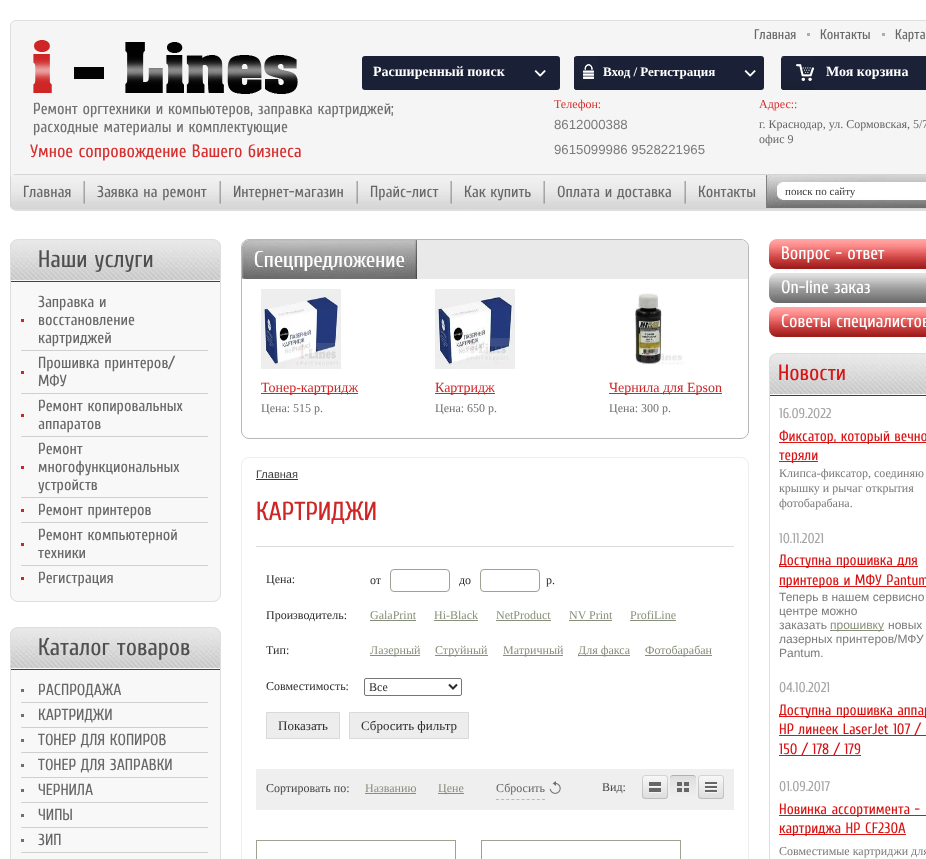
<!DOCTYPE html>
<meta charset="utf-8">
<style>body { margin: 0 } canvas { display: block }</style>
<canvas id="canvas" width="926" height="859"></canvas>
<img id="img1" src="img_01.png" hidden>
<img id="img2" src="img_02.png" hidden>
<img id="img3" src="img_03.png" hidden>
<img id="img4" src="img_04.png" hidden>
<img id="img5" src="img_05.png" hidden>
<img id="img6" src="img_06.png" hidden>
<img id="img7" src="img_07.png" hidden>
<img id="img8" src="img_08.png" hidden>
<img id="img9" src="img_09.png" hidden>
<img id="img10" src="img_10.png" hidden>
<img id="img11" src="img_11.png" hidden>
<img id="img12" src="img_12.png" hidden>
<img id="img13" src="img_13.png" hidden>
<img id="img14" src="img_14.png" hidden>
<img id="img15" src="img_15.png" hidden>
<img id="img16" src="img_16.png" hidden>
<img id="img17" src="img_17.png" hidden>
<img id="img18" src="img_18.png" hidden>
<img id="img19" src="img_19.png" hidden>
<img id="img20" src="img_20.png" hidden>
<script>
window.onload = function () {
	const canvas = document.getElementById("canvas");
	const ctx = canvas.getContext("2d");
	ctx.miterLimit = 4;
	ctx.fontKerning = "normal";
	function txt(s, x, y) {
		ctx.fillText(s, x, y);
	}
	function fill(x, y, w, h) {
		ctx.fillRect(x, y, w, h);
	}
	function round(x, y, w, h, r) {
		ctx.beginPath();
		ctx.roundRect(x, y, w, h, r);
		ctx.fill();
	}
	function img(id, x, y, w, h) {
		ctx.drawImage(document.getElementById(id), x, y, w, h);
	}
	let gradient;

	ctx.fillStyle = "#FFFFFF";
	fill(0, 0, 926, 859);
	ctx.fillStyle = "#F5F5F5";
	ctx.beginPath();
	ctx.roundRect(10.5, 20.5, 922, 190, 5.5);
	ctx.fill();
	ctx.strokeStyle = "#DEDEDE";
	ctx.stroke();
	ctx.fillStyle = "#ADADAD";
	fill(807, 33, 3, 3);
	fill(882, 33, 3, 3);
	ctx.fillStyle = "#1A2035";
	round(362, 56, 198, 34, 3);
	img("img1", 534, 70, 12, 7);
	ctx.fillStyle = "#FFFFFF";
	round(574, 56, 190, 34, 2);
	ctx.fillStyle = "#1A2035";
	round(574, 56, 190, 34, 3);
	img("img2", 574, 57, 24, 33);
	img("img1", 744, 70, 12, 7);
	ctx.fillStyle = "#1B2237";
	round(781, 56, 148, 34, 3);
	img("img3", 781, 57, 33, 33);
	img("img4", 33, 40, 265, 54);
	img("img5", 11, 174, 915, 36);
	ctx.fillStyle = "#D3D3D3";
	fill(10, 177, 1, 30);
	img("img6", 83, 181, 2, 23);
	img("img6", 219, 181, 2, 23);
	img("img6", 356, 181, 2, 23);
	img("img6", 450, 181, 2, 23);
	img("img6", 543, 181, 2, 23);
	img("img6", 684, 181, 2, 23);
	img("img7", 766, 174, 160, 34);
	ctx.fillStyle = "#F8F8F8";
	round(10, 239, 211, 363, 8);
	img("img8", 10, 240, 211, 42);
	ctx.beginPath();
	ctx.roundRect(10.5, 239.5, 210, 362, 7.5);
	ctx.stroke();
	ctx.fillStyle = "#CE2525";
	fill(21, 319, 3, 3);
	img("img9", 21, 350, 187, 1);
	fill(21, 371, 3, 3);
	img("img9", 21, 393, 187, 1);
	fill(21, 414, 3, 3);
	img("img9", 21, 436, 187, 1);
	fill(21, 466, 3, 3);
	img("img9", 21, 497, 187, 1);
	fill(21, 509, 3, 3);
	img("img9", 21, 522, 187, 1);
	fill(21, 543, 3, 3);
	img("img9", 21, 565, 187, 1);
	fill(21, 577, 3, 3);
	ctx.fillStyle = "#F8F8F8";
	round(10, 627, 211, 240, 8);
	img("img8", 10, 628, 211, 42);
	ctx.beginPath();
	ctx.roundRect(10.5, 627.5, 210, 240, 7.5);
	ctx.stroke();
	ctx.fillStyle = "#707070";
	fill(21, 689, 3, 3);
	img("img9", 21, 702, 187, 1);
	fill(21, 714, 3, 3);
	img("img9", 21, 727, 187, 1);
	fill(21, 739, 3, 3);
	img("img9", 21, 752, 187, 1);
	fill(21, 764, 3, 3);
	img("img9", 21, 777, 187, 1);
	fill(21, 789, 3, 3);
	img("img9", 21, 802, 187, 1);
	fill(21, 814, 3, 3);
	img("img9", 21, 827, 187, 1);
	fill(21, 839, 3, 3);
	img("img9", 21, 852, 187, 1);
	ctx.beginPath();
	ctx.roundRect(241.5, 239.5, 507, 199, 7.5);
	ctx.strokeStyle = "#B8B8B8";
	ctx.stroke();
	ctx.fillStyle = "#E9E9E9";
	ctx.beginPath();
	ctx.roundRect(242, 240, 506, 39, [7, 7, 0, 0]);
	ctx.fill();
	img("img10", 242, 240, 175, 39);
	img("img11", 261, 289, 80, 80);
	ctx.fillStyle = "#CE2525";
	fill(261, 393, 97, 1);
	img("img12", 435, 289, 80, 80);
	fill(435, 393, 60, 1);
	img("img13", 634, 293, 50, 72);
	fill(609, 393, 113, 1);
	ctx.beginPath();
	ctx.roundRect(241.5, 457.5, 507, 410, 7.5);
	ctx.strokeStyle = "#EDEDED";
	ctx.stroke();
	ctx.fillStyle = "#3B3B3B";
	fill(256, 479, 42, 1);
	ctx.fillStyle = "#DCDCDC";
	fill(256, 546, 478, 1);
	ctx.beginPath();
	ctx.roundRect(390.5, 569.5, 59, 22, 3.5);
	ctx.strokeStyle = "#9CA391";
	ctx.stroke();
	ctx.beginPath();
	ctx.roundRect(480.5, 569.5, 59, 22, 3.5);
	ctx.stroke();
	ctx.fillStyle = "#878F7A";
	fill(370, 620, 46, 1);
	fill(434, 620, 44, 1);
	fill(496, 620, 55, 1);
	fill(569, 620, 43, 1);
	fill(630, 620, 46, 1);
	fill(370, 655, 50, 1);
	fill(435, 655, 53, 1);
	fill(503, 655, 60, 1);
	fill(578, 655, 52, 1);
	fill(645, 655, 67, 1);
	ctx.beginPath();
	ctx.roundRect(364.5, 678.5, 97, 17, 1.5);
	ctx.strokeStyle = "#767676";
	ctx.stroke();
	ctx.beginPath();
	ctx.moveTo(449, 684.5);
	ctx.lineTo(453, 688.5);
	ctx.lineTo(457, 684.5);
	ctx.strokeStyle = "#2D2D2D";
	ctx.lineWidth = 2;
	ctx.stroke();
	ctx.fillStyle = "#EDEDED";
	ctx.beginPath();
	ctx.rect(266.5, 712.5, 73, 26);
	ctx.fill();
	ctx.strokeStyle = "#D9D9D9";
	ctx.lineWidth = 1;
	ctx.stroke();
	ctx.beginPath();
	ctx.rect(349.5, 712.5, 119, 26);
	ctx.fill();
	ctx.stroke();
	ctx.fillStyle = "#EFEFEF";
	fill(256, 769, 478, 41);
	ctx.fillStyle = "#878F7A";
	fill(365, 793, 51, 1);
	fill(438, 793, 26, 1);
	ctx.beginPath();
	ctx.moveTo(496, 799.5);
	ctx.lineTo(545, 799.5);
	ctx.strokeStyle = "#B8B8B8";
	ctx.setLineDash([3, 2.11]);
	ctx.stroke();
	img("img14", 549, 781, 12, 13);
	gradient = ctx.createLinearGradient(655, 775, 655, 799);
	gradient.addColorStop(0, "#F8F8F8");
	gradient.addColorStop(1, "#DDDDDD");
	ctx.fillStyle = gradient;
	round(642, 775, 26, 24, 3);
	ctx.beginPath();
	ctx.roundRect(642.5, 775.5, 25, 23, 2.5);
	ctx.strokeStyle = "rgba(0, 0, 0, 0.15)";
	ctx.setLineDash([]);
	ctx.stroke();
	img("img15", 649, 782, 12, 11);
	gradient = ctx.createLinearGradient(683, 799, 683, 775);
	gradient.addColorStop(0, "#F1F1F1");
	gradient.addColorStop(1, "#DDDDDD");
	ctx.fillStyle = gradient;
	round(670, 775, 26, 24, 3);
	ctx.fillStyle = "rgba(0, 0, 0, 0.2)";
	ctx.beginPath();
	ctx.moveTo(673, 776);
	ctx.lineTo(693, 776);
	ctx.bezierCurveTo(695, 776, 696, 777, 696, 779);
	ctx.bezierCurveTo(696, 774.5, 693.5, 775, 689.5, 775);
	ctx.lineTo(676.5, 775);
	ctx.bezierCurveTo(672.5, 775, 670, 774.5, 670, 779);
	ctx.bezierCurveTo(670, 777, 671, 776, 673, 776);
	ctx.closePath();
	ctx.fill();
	img("img16", 677, 782, 12, 10);
	gradient = ctx.createLinearGradient(711, 775, 711, 799);
	gradient.addColorStop(0, "#F8F8F8");
	gradient.addColorStop(1, "#DDDDDD");
	ctx.fillStyle = gradient;
	round(698, 775, 26, 24, 3);
	ctx.beginPath();
	ctx.roundRect(698.5, 775.5, 25, 23, 2.5);
	ctx.stroke();
	img("img17", 705, 782, 12, 11);
	ctx.strokeStyle = "#9CA391";
	ctx.strokeRect(256.5, 840.5, 199, 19);
	ctx.strokeRect(481.5, 840.5, 199, 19);
	img("img18", 769, 239, 157, 30);
	img("img19", 769, 273, 157, 30);
	img("img18", 769, 307, 157, 30);
	img("img20", 769, 354, 157, 42);
	ctx.beginPath();
	ctx.roundRect(769.5, 353.5, 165, 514, 7.5);
	ctx.strokeStyle = "#DEDEDE";
	ctx.stroke();
	ctx.fillStyle = "#DA1313";
	fill(779, 442, 147, 1);
	fill(779, 461, 39, 1);
	fill(779, 566, 139, 1);
	fill(779, 586, 147, 1);
	ctx.fillStyle = "#878F7A";
	fill(830, 630, 54, 1);
	ctx.fillStyle = "#DA1313";
	fill(779, 716, 147, 1);
	fill(779, 735, 147, 1);
	fill(779, 755, 82, 1);
	fill(779, 815, 147, 1);
	fill(779, 834, 127, 1);
	ctx.font = "14px Cuprum";
	ctx.fillStyle = "#676767";
	txt("Главная", 754, 39);
	txt("Контакты", 820, 39);
	txt("Карта", 895, 39);
	ctx.font = "bold 14px Liberation Serif";
	ctx.fillStyle = "#FFFFFF";
	txt("Расширенный поиск", 373, 76);
	ctx.font = "bold 13px Liberation Serif";
	txt("Вход / Регистрация", 603, 76);
	ctx.font = "bold 14px Liberation Serif";
	txt("Моя корзина", 826, 76);
	ctx.font = "16px Cuprum";
	ctx.fillStyle = "#707070";
	txt("Ремонт оргтехники и компьютеров, заправка картриджей;", 33, 114);
	txt("расходные материалы и комплектующие", 33, 132);
	ctx.font = "12px Liberation Serif";
	ctx.fillStyle = "#D5302F";
	txt("Телефон:", 554, 108);
	ctx.font = "13.25px Liberation Sans";
	ctx.fillStyle = "#7A7A7A";
	txt("8612000388", 554, 129);
	txt("9615099986 9528221965", 554, 154);
	ctx.font = "12px Liberation Serif";
	ctx.fillStyle = "#D5302F";
	txt("Адрес::", 759, 108);
	ctx.fillStyle = "#676767";
	txt("г. Краснодар, ул. Сормовская, 5/7", 759, 128);
	txt("офис 9", 759, 143);
	ctx.font = "18px Cuprum";
	ctx.fillStyle = "#D5302F";
	txt("Умное сопровождение Вашего бизнеса", 30, 157);
	ctx.font = "16px Cuprum";
	ctx.fillStyle = "#676767";
	txt("Главная", 23, 197);
	txt("Заявка на ремонт", 97, 197);
	txt("Интернет-магазин", 233, 197);
	txt("Прайс-лист", 370, 197);
	txt("Как купить", 464, 197);
	txt("Оплата и доставка", 557, 197);
	txt("Контакты", 698, 197);
	ctx.font = "11px Liberation Serif";
	ctx.fillStyle = "#3B3B3B";
	txt("поиск по сайту", 785, 195);
	ctx.font = "24px Cuprum";
	ctx.fillStyle = "#4F4F4F";
	txt("Наши услуги", 38, 267);
	ctx.font = "16px Cuprum";
	ctx.fillStyle = "#676767";
	txt("Заправка и", 38, 307);
	txt("восстановление", 38, 325);
	txt("картриджей", 38, 343);
	txt("Прошивка принтеров/", 38, 368);
	txt("МФУ", 38, 386);
	txt("Ремонт копировальных", 38, 411);
	txt("аппаратов", 38, 429);
	txt("Ремонт", 38, 454);
	txt("многофункциональных", 38, 472);
	txt("устройств", 38, 490);
	txt("Ремонт принтеров", 38, 515);
	txt("Ремонт компьютерной", 38, 540);
	txt("техники", 38, 558);
	txt("Регистрация", 38, 583);
	ctx.font = "24px Cuprum";
	ctx.fillStyle = "#4F4F4F";
	txt("Каталог товаров", 38, 655);
	ctx.font = "16px Cuprum";
	ctx.fillStyle = "#676767";
	txt("РАСПРОДАЖА", 38, 695);
	txt("КАРТРИДЖИ", 38, 720);
	txt("ТОНЕР ДЛЯ КОПИРОВ", 38, 745);
	txt("ТОНЕР ДЛЯ ЗАПРАВКИ", 38, 770);
	txt("ЧЕРНИЛА", 38, 795);
	txt("ЧИПЫ", 38, 820);
	txt("ЗИП", 38, 845);
	ctx.font = "14px Liberation Serif";
	ctx.fillStyle = "#CE2525";
	txt("Тонер-картридж", 261, 392);
	ctx.font = "12px Liberation Serif";
	ctx.fillStyle = "#707070";
	txt("Цена: 515 р.", 261, 412);
	ctx.font = "14px Liberation Serif";
	ctx.fillStyle = "#CE2525";
	txt("Картридж", 435, 392);
	ctx.font = "12px Liberation Serif";
	ctx.fillStyle = "#707070";
	txt("Цена: 650 р.", 435, 412);
	ctx.font = "14px Liberation Serif";
	ctx.fillStyle = "#CE2525";
	txt("Чернила для Epson", 609, 392);
	ctx.font = "12px Liberation Serif";
	ctx.fillStyle = "#707070";
	txt("Цена: 300 р.", 609, 412);
	ctx.font = "11px Liberation Sans";
	ctx.fillStyle = "#3B3B3B";
	txt("Главная", 256, 478);
	ctx.font = "26px Cuprum";
	ctx.fillStyle = "#CE2525";
	txt("КАРТРИДЖИ", 256, 520);
	ctx.font = "12px Liberation Serif";
	ctx.fillStyle = "#2D2D2D";
	txt("Цена:", 266, 583);
	txt("от", 370, 584);
	txt("до", 459, 584);
	txt("р.", 546, 584);
	txt("Производитель:", 266, 619);
	ctx.fillStyle = "#878F7A";
	txt("GalaPrint", 370, 619);
	txt("Hi-Black", 434, 619);
	txt("NetProduct", 496, 619);
	txt("NV Print", 569, 619);
	txt("ProfiLine", 630, 619);
	ctx.fillStyle = "#2D2D2D";
	txt("Тип:", 266, 654);
	ctx.fillStyle = "#878F7A";
	txt("Лазерный", 370, 654);
	txt("Струйный", 435, 654);
	txt("Матричный", 503, 654);
	txt("Для факса", 578, 654);
	txt("Фотобарабан", 645, 654);
	ctx.fillStyle = "#2D2D2D";
	txt("Совместимость:", 266, 690);
	txt("Все", 369, 691);
	ctx.font = "13px Liberation Serif";
	txt("Показать", 278, 730);
	txt("Сбросить фильтр", 361, 730);
	ctx.font = "12px Liberation Serif";
	ctx.fillStyle = "#464646";
	txt("Сортировать по:", 266, 792);
	ctx.fillStyle = "#878F7A";
	txt("Названию", 365, 792);
	txt("Цене", 438, 792);
	ctx.fillStyle = "#676767";
	txt("Сбросить", 496, 792);
	ctx.fillStyle = "#464646";
	txt("Вид:", 602, 791);
	ctx.font = "18px Cuprum";
	ctx.fillStyle = "#FFFFFF";
	txt("Вопрос - ответ", 781, 259);
	txt("On-line заказ", 781, 293);
	txt("Советы специалистов", 781, 327);
	ctx.font = "22px Cuprum";
	ctx.fillStyle = "#DA1313";
	txt("Новости", 778, 380);
	ctx.font = "14px Cuprum";
	ctx.fillStyle = "#A7A5A4";
	txt("16.09.2022", 779, 418);
	ctx.font = "15px Cuprum";
	ctx.fillStyle = "#DA1313";
	txt("Фиксатор, который вечно", 779, 441);
	txt("теряли", 779, 460);
	ctx.font = "12px Liberation Serif";
	ctx.fillStyle = "#7A7A7A";
	txt("Клипса-фиксатор, соединяю", 779, 477);
	txt("крышку и рычаг открытия", 779, 492);
	txt("фотобарабана.", 779, 507);
	ctx.font = "14px Cuprum";
	ctx.fillStyle = "#A7A5A4";
	txt("10.11.2021", 779, 543);
	ctx.font = "15px Cuprum";
	ctx.fillStyle = "#DA1313";
	txt("Доступна прошивка для", 779, 565);
	txt("принтеров и МФУ Pantum", 779, 585);
	ctx.font = "12px Liberation Sans";
	ctx.fillStyle = "#7A7A7A";
	txt("Теперь в нашем сервисно", 779, 601);
	txt("центре можно", 779, 615);
	txt("заказать", 779, 629);
	ctx.fillStyle = "#878F7A";
	txt("прошивку", 830, 629);
	ctx.fillStyle = "#7A7A7A";
	txt("новых", 888, 629);
	txt("лазерных принтеров/МФУ", 779, 643);
	txt("Pantum.", 779, 657);
	ctx.font = "14px Cuprum";
	ctx.fillStyle = "#A7A5A4";
	txt("04.10.2021", 779, 692);
	ctx.font = "15px Cuprum";
	ctx.fillStyle = "#DA1313";
	txt("Доступна прошивка аппар", 779, 715);
	txt("HP линеек LaserJet 107 /", 779, 734);
	txt("150 / 178 / 179", 779, 754);
	ctx.font = "14px Cuprum";
	ctx.fillStyle = "#A7A5A4";
	txt("01.09.2017", 779, 791);
	ctx.font = "15px Cuprum";
	ctx.fillStyle = "#DA1313";
	txt("Новинка ассортимента -", 779, 814);
	txt("картриджа HP CF230A", 779, 833);
	ctx.font = "12px Liberation Serif";
	ctx.fillStyle = "#7A7A7A";
	txt("Совместимые картриджи для", 779, 855);
};
</script>
